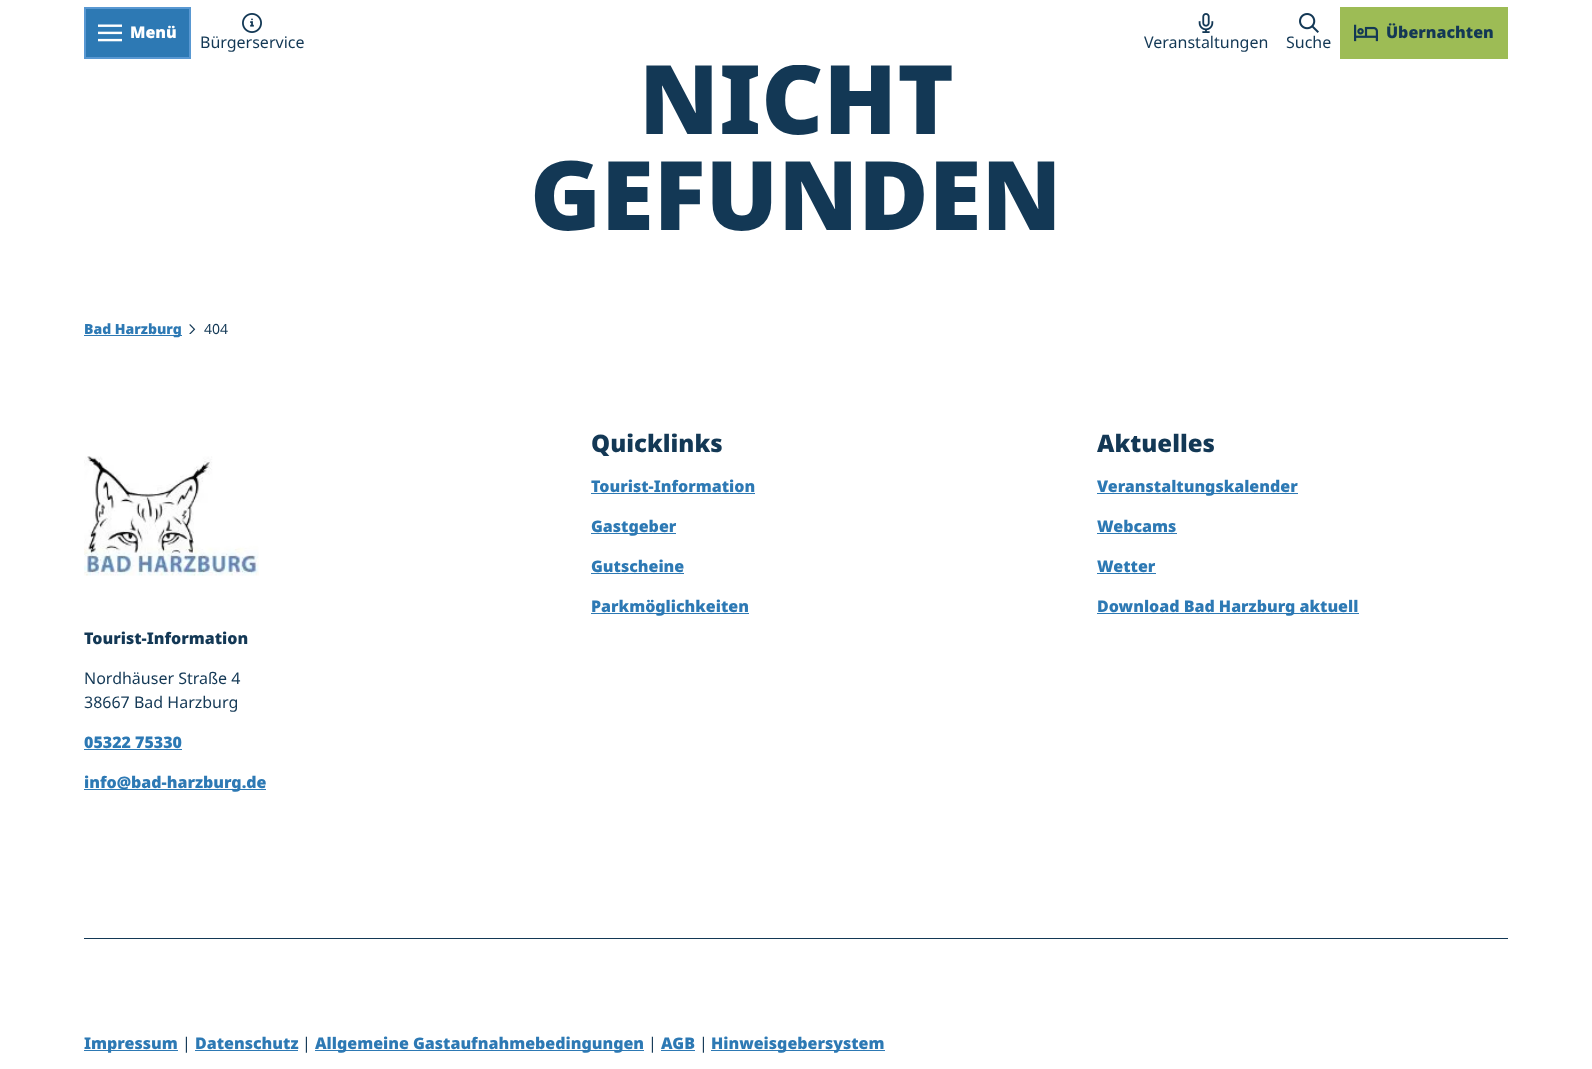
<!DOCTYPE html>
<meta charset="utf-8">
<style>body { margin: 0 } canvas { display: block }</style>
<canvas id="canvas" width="1592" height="1069"></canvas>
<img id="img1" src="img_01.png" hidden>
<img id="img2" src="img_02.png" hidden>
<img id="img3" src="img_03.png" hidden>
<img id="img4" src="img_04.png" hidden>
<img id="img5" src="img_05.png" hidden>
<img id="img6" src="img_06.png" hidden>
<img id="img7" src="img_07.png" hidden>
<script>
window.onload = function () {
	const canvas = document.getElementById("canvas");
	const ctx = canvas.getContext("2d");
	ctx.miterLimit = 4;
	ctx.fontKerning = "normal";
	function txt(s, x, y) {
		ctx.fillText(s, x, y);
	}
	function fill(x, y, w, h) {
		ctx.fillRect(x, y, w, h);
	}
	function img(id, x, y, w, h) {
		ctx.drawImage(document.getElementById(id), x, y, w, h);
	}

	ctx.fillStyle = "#FFFFFF";
	fill(0, 0, 1592, 1069);
	ctx.fillStyle = "#2D79B4";
	ctx.beginPath();
	ctx.rect(85, 8, 105, 50);
	ctx.fill();
	ctx.strokeStyle = "#5998D2";
	ctx.lineWidth = 2;
	ctx.stroke();
	img("img1", 98, 24, 24, 18);
	img("img2", 242, 13, 20, 20);
	ctx.fillStyle = "#9DBC55";
	fill(1340, 7, 168, 52);
	img("img3", 1354, 24, 24, 18);
	img("img4", 1198, 13, 16, 20);
	img("img5", 1299, 13, 20, 20);
	ctx.fillStyle = "#2D79B4";
	fill(84, 335, 98, 1);
	img("img6", 189, 324, 7, 10);
	fill(591, 493, 164, 1);
	fill(591, 533, 85, 1);
	fill(591, 573, 93, 1);
	fill(591, 613, 158, 1);
	fill(1097, 493, 201, 1);
	fill(1097, 533, 80, 1);
	fill(1097, 573, 59, 1);
	fill(1097, 613, 262, 1);
	img("img7", 84, 456, 175, 120);
	fill(84, 749, 98, 1);
	fill(84, 789, 182, 1);
	ctx.fillStyle = "#133855";
	fill(84, 938, 1424, 1);
	ctx.fillStyle = "#2D79B4";
	fill(84, 1050, 94, 1);
	fill(195, 1050, 103, 1);
	fill(315, 1050, 329, 1);
	fill(661, 1050, 34, 1);
	fill(711, 1050, 174, 1);
	ctx.font = "900 16px Noto Sans";
	ctx.fillStyle = "#FFFFFF";
	txt("Menü", 130, 38);
	ctx.font = "16px Noto Sans";
	ctx.fillStyle = "#133855";
	txt("Bürgerservice", 200, 48);
	ctx.font = "900 16px Noto Sans";
	txt("Übernachten", 1386, 38);
	ctx.font = "16px Noto Sans";
	txt("Veranstaltungen", 1144, 48);
	txt("Suche", 1286, 48);
	ctx.font = "900 96px Noto Sans";
	txt("NICHT", 639, 134);
	ctx.fillStyle = "#FFFFFF";
	fill(792, 64, 14, 1);
	ctx.fillStyle = "#133855";
	txt("GEFUNDEN", 530, 230);
	ctx.font = "900 14px Noto Sans";
	ctx.fillStyle = "#2D79B4";
	txt("Bad Harzburg", 84, 334);
	ctx.font = "14px Noto Sans";
	ctx.fillStyle = "#133855";
	txt("404", 204, 334);
	ctx.font = "900 24px Noto Sans";
	txt("Quicklinks", 591, 452);
	ctx.font = "900 16px Noto Sans";
	ctx.fillStyle = "#2D79B4";
	txt("Tourist-Information", 591, 492);
	txt("Gastgeber", 591, 532);
	txt("Gutscheine", 591, 572);
	txt("Parkmöglichkeiten", 591, 612);
	ctx.font = "900 24px Noto Sans";
	ctx.fillStyle = "#133855";
	txt("Aktuelles", 1097, 452);
	ctx.font = "900 16px Noto Sans";
	ctx.fillStyle = "#2D79B4";
	txt("Veranstaltungskalender", 1097, 492);
	txt("Webcams", 1097, 532);
	txt("Wetter", 1097, 572);
	txt("Download Bad Harzburg aktuell", 1097, 612);
	ctx.fillStyle = "#133855";
	txt("Tourist-Information", 84, 644);
	ctx.font = "16px Noto Sans";
	txt("Nordhäuser Straße 4", 84, 684);
	txt("38667 Bad Harzburg", 84, 708);
	ctx.font = "900 16px Noto Sans";
	ctx.fillStyle = "#2D79B4";
	txt("05322 75330", 84, 748);
	txt("info@bad-harzburg.de", 84, 788);
	txt("Impressum", 84, 1049);
	ctx.font = "16px Noto Sans";
	ctx.fillStyle = "#133855";
	txt("|", 182, 1049);
	ctx.font = "900 16px Noto Sans";
	ctx.fillStyle = "#2D79B4";
	txt("Datenschutz", 195, 1049);
	ctx.font = "16px Noto Sans";
	ctx.fillStyle = "#133855";
	txt("|", 302, 1049);
	ctx.font = "900 16px Noto Sans";
	ctx.fillStyle = "#2D79B4";
	txt("Allgemeine Gastaufnahmebedingungen", 315, 1049);
	ctx.font = "16px Noto Sans";
	ctx.fillStyle = "#133855";
	txt("|", 648, 1049);
	ctx.font = "900 16px Noto Sans";
	ctx.fillStyle = "#2D79B4";
	txt("AGB", 661, 1049);
	ctx.font = "16px Noto Sans";
	ctx.fillStyle = "#133855";
	txt("|", 699, 1049);
	ctx.font = "900 16px Noto Sans";
	ctx.fillStyle = "#2D79B4";
	txt("Hinweisgebersystem", 711, 1049);
};
</script>
